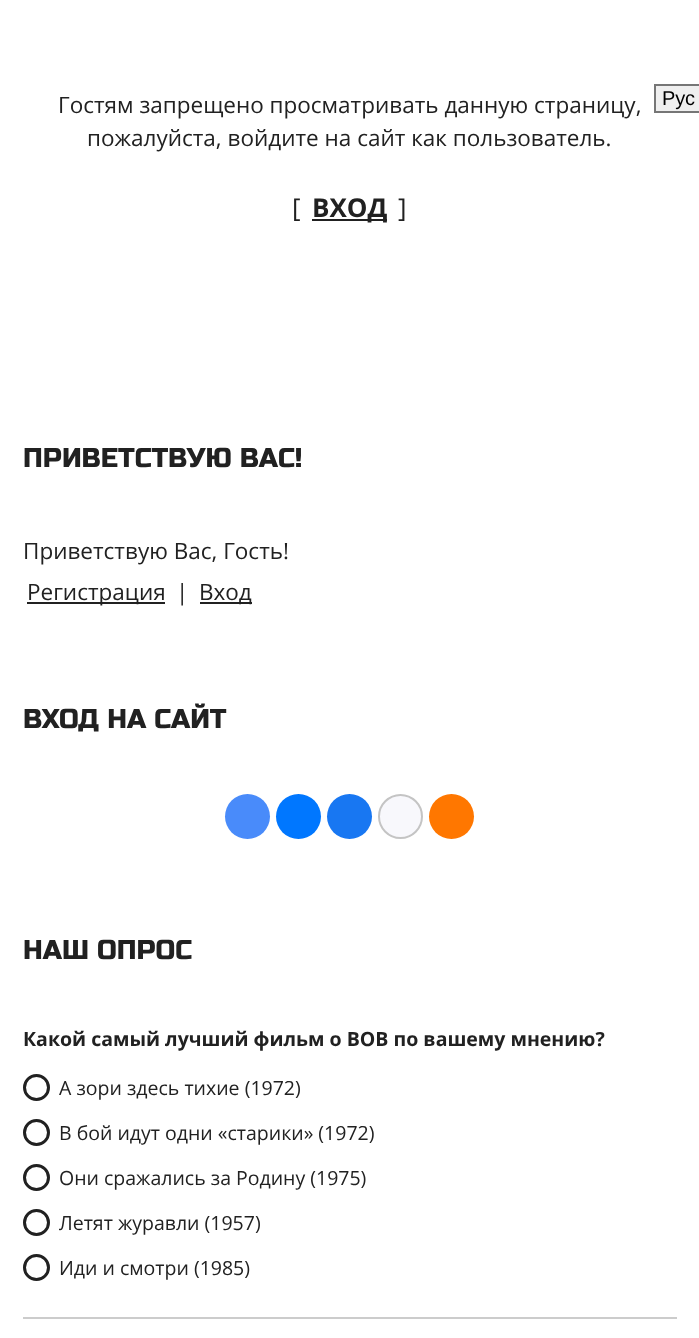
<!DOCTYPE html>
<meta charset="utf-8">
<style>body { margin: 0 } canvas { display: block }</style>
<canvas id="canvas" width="699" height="1338"></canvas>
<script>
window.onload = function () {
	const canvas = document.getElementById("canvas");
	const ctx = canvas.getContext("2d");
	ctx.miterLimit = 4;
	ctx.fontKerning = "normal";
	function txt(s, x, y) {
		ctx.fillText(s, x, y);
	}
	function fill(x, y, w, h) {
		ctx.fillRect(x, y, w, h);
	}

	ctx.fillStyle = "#FFFFFF";
	fill(0, 0, 699, 1338);
	ctx.fillStyle = "#212121";
	fill(312, 219, 75, 2);
	fill(27, 602, 138, 2);
	fill(200, 602, 52, 2);
	ctx.fillStyle = "#498BFA";
	ctx.beginPath();
	ctx.arc(247.5, 816.5, 22.5, 0, Math.PI * 2);
	ctx.fill();
	ctx.fillStyle = "#0077FF";
	ctx.beginPath();
	ctx.arc(298.5, 816.5, 22.5, 0, Math.PI * 2);
	ctx.fill();
	ctx.fillStyle = "#1877F2";
	ctx.beginPath();
	ctx.arc(349.5, 816.5, 22.5, 0, Math.PI * 2);
	ctx.fill();
	ctx.fillStyle = "#F8F8FC";
	ctx.beginPath();
	ctx.arc(400.5, 816.5, 21.5, 0, Math.PI * 2);
	ctx.fill();
	ctx.strokeStyle = "#C4C4C4";
	ctx.lineWidth = 2;
	ctx.stroke();
	ctx.fillStyle = "#FF7700";
	ctx.beginPath();
	ctx.arc(451.5, 816.5, 22.5, 0, Math.PI * 2);
	ctx.fill();
	ctx.beginPath();
	ctx.arc(36.5, 1087.5, 12, 0, Math.PI * 2);
	ctx.strokeStyle = "#212121";
	ctx.lineWidth = 3;
	ctx.stroke();
	ctx.beginPath();
	ctx.arc(36.5, 1132.5, 12, 0, Math.PI * 2);
	ctx.stroke();
	ctx.beginPath();
	ctx.arc(36.5, 1177.5, 12, 0, Math.PI * 2);
	ctx.stroke();
	ctx.beginPath();
	ctx.arc(36.5, 1222.5, 12, 0, Math.PI * 2);
	ctx.stroke();
	ctx.beginPath();
	ctx.arc(36.5, 1267.5, 12, 0, Math.PI * 2);
	ctx.stroke();
	ctx.fillStyle = "#CCCCCC";
	fill(23, 1317, 654, 2);
	ctx.fillStyle = "#EFEFEF";
	ctx.beginPath();
	ctx.rect(655, 85, 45, 27);
	ctx.fill();
	ctx.strokeStyle = "#767676";
	ctx.lineWidth = 2;
	ctx.stroke();
	ctx.font = "22.5px Open Sans";
	ctx.fillStyle = "#212121";
	txt("Гостям запрещено просматривать данную страницу,", 58, 113);
	txt("пожалуйста, войдите на сайт как пользователь.", 87, 146);
	ctx.font = "26px Open Sans";
	txt("[", 292, 217);
	ctx.font = "bold 26px Open Sans";
	txt("ВХОД", 312, 217);
	ctx.font = "26px Open Sans";
	txt("]", 398, 217);
	ctx.font = "27px Russo One";
	txt("ПРИВЕТСТВУЮ ВАС!", 23, 467);
	ctx.font = "22.5px Open Sans";
	txt("Приветствую Вас, Гость!", 23, 559);
	txt("Регистрация", 27, 600);
	txt("|", 176, 600);
	txt("Вход", 199, 600);
	ctx.font = "27px Russo One";
	txt("ВХОД НА САЙТ", 23, 728);
	txt("НАШ ОПРОС", 23, 959);
	ctx.font = "bold 19.5px Open Sans";
	txt("Какой самый лучший фильм о ВОВ по вашему мнению?", 23, 1046);
	ctx.font = "19.5px Open Sans";
	txt("А зори здесь тихие (1972)", 59, 1095);
	txt("В бой идут одни «старики» (1972)", 59, 1140);
	txt("Они сражались за Родину (1975)", 59, 1185);
	txt("Летят журавли (1957)", 59, 1230);
	txt("Иди и смотри (1985)", 59, 1275);
	ctx.font = "20px Liberation Sans";
	ctx.fillStyle = "#000000";
	txt("Рус", 662, 105);
};
</script>
